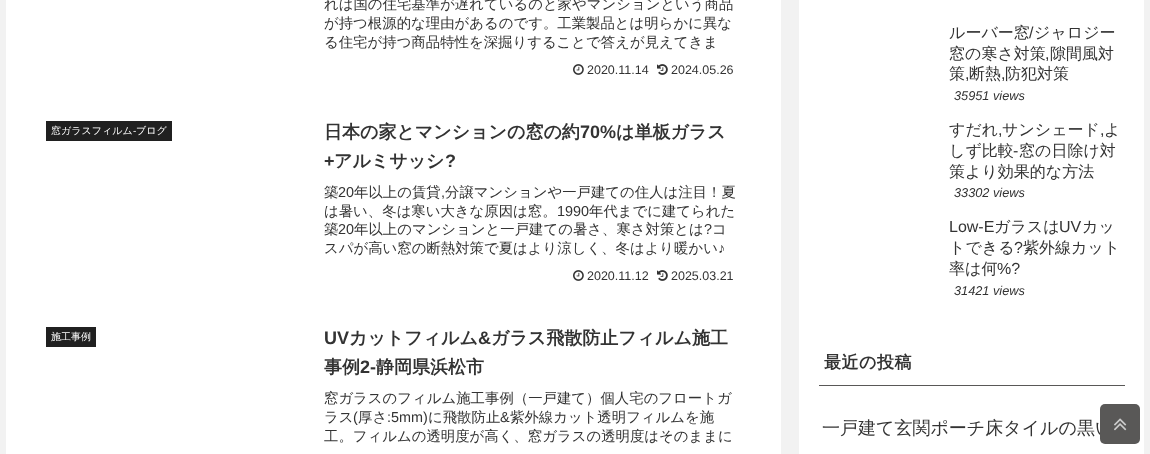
<!DOCTYPE html>
<meta charset="utf-8">
<style>body { margin: 0 } canvas { display: block }</style>
<canvas id="canvas" width="1150" height="454"></canvas>
<img id="img1" src="img_01.png" hidden>
<img id="img2" src="img_02.png" hidden>
<img id="img3" src="img_03.png" hidden>
<script>
window.onload = function () {
	const canvas = document.getElementById("canvas");
	const ctx = canvas.getContext("2d");
	ctx.miterLimit = 4;
	ctx.fontKerning = "normal";
	function txt(s, x, y) {
		ctx.fillText(s, x, y);
	}
	function fill(x, y, w, h) {
		ctx.fillRect(x, y, w, h);
	}
	function round(x, y, w, h, r) {
		ctx.beginPath();
		ctx.roundRect(x, y, w, h, r);
		ctx.fill();
	}
	function img(id, x, y, w, h) {
		ctx.drawImage(document.getElementById(id), x, y, w, h);
	}

	ctx.fillStyle = "#F2F2F2";
	fill(0, 0, 1150, 454);
	ctx.fillStyle = "#FFFFFF";
	fill(6, 0, 775, 454);
	img("img1", 573, 64, 11, 11);
	img("img2", 657, 64, 11, 11);
	ctx.fillStyle = "#202020";
	fill(46, 121, 126, 20);
	img("img1", 573, 270, 11, 11);
	img("img2", 657, 270, 11, 11);
	fill(46, 327, 50, 20);
	ctx.fillStyle = "#FFFFFF";
	fill(799, 0, 345, 454);
	ctx.fillStyle = "#595857";
	fill(819, 385, 306, 1);
	ctx.font = "500 14.4px WenQuanYi Zen Hei";
	ctx.fillStyle = "#333333";
	txt("れは国の住宅基準が遅れているのと家やマンションという商品", 324, 9);
	txt("が持つ根源的な理由があるのです。工業製品とは明らかに異な", 324, 28);
	txt("る住宅が持つ商品特性を深掘りすることで答えが見えてきま", 324, 47);
	ctx.font = "12.5px Liberation Sans";
	txt("2020.11.14", 587, 74);
	txt("2024.05.26", 671, 74);
	ctx.font = "500 10px WenQuanYi Zen Hei";
	ctx.fillStyle = "#FFFFFF";
	txt("窓ガラスフィルム", 51, 134);
	ctx.font = "10px Liberation Sans";
	txt("-", 133, 134);
	ctx.font = "500 10px WenQuanYi Zen Hei";
	txt("ブログ", 136, 134);
	ctx.font = "bold 18px WenQuanYi Zen Hei";
	ctx.fillStyle = "#333333";
	txt("日本の家とマンションの窓の約", 324, 138);
	ctx.font = "bold 18px Liberation Sans";
	txt("70%", 580, 138);
	ctx.font = "bold 18px WenQuanYi Zen Hei";
	txt("は単板ガラス", 616, 138);
	ctx.font = "bold 18px Liberation Sans";
	txt("+", 324, 167);
	ctx.font = "bold 18px WenQuanYi Zen Hei";
	txt("アルミサッシ", 334, 167);
	ctx.font = "bold 18px Liberation Sans";
	txt("?", 445, 167);
	ctx.font = "500 14.4px WenQuanYi Zen Hei";
	txt("築", 324, 197);
	ctx.font = "14.4px Liberation Sans";
	txt("20", 338, 197);
	ctx.font = "500 14.4px WenQuanYi Zen Hei";
	txt("年以上の賃貸", 354, 197);
	ctx.font = "14.4px Liberation Sans";
	txt(",", 441, 197);
	ctx.font = "500 14.4px WenQuanYi Zen Hei";
	txt("分譲マンションや一戸建ての住人は注目！夏", 445, 197);
	txt("は暑い、冬は寒い大きな原因は窓。", 324, 216);
	ctx.font = "14.4px Liberation Sans";
	txt("1990", 557, 216);
	ctx.font = "500 14.4px WenQuanYi Zen Hei";
	txt("年代までに建てられた", 589, 216);
	txt("築", 324, 234);
	ctx.font = "14.4px Liberation Sans";
	txt("20", 338, 234);
	ctx.font = "500 14.4px WenQuanYi Zen Hei";
	txt("年以上のマンションと一戸建ての暑さ、寒さ対策とは", 354, 234);
	ctx.font = "14.4px Liberation Sans";
	txt("?", 704, 234);
	ctx.font = "500 14.4px WenQuanYi Zen Hei";
	txt("コ", 712, 234);
	txt("スパが高い窓の断熱対策で夏はより涼しく、冬はより暖かい", 324, 253);
	ctx.font = "14.4px Liberation Sans";
	txt("♪", 718, 253);
	ctx.font = "12.5px Liberation Sans";
	txt("2020.11.12", 587, 280);
	txt("2025.03.21", 671, 280);
	ctx.font = "500 10px WenQuanYi Zen Hei";
	ctx.fillStyle = "#FFFFFF";
	txt("施工事例", 51, 340);
	ctx.font = "bold 18px Liberation Sans";
	ctx.fillStyle = "#333333";
	txt("UV", 324, 344);
	ctx.font = "bold 18px WenQuanYi Zen Hei";
	txt("カットフィルム", 349, 344);
	ctx.font = "bold 18px Liberation Sans";
	txt("&", 478, 344);
	ctx.font = "bold 18px WenQuanYi Zen Hei";
	txt("ガラス飛散防止フィルム施工", 491, 344);
	txt("事例", 324, 373);
	ctx.font = "bold 18px Liberation Sans";
	txt("2-", 360, 373);
	ctx.font = "bold 18px WenQuanYi Zen Hei";
	txt("静岡県浜松市", 376, 373);
	ctx.font = "500 14.4px WenQuanYi Zen Hei";
	txt("窓ガラスのフィルム施工事例（一戸建て）個人宅のフロートガ", 324, 403);
	txt("ラス", 324, 422);
	ctx.font = "14.4px Liberation Sans";
	txt("(", 353, 422);
	ctx.font = "500 14.4px WenQuanYi Zen Hei";
	txt("厚さ", 358, 422);
	ctx.font = "14.4px Liberation Sans";
	txt(":5mm)", 387, 422);
	ctx.font = "500 14.4px WenQuanYi Zen Hei";
	txt("に飛散防止", 428, 422);
	ctx.font = "14.4px Liberation Sans";
	txt("&", 500, 422);
	ctx.font = "500 14.4px WenQuanYi Zen Hei";
	txt("紫外線カット透明フィルムを施", 510, 422);
	txt("工。フィルムの透明度が高く、窓ガラスの透明度はそのままに", 324, 441);
	ctx.font = "500 16px WenQuanYi Zen Hei";
	txt("ルーバー窓", 949, 38);
	ctx.font = "16px Liberation Sans";
	txt("/", 1029, 38);
	ctx.font = "500 16px WenQuanYi Zen Hei";
	txt("ジャロジー", 1034, 38);
	txt("窓の寒さ対策", 949, 59);
	ctx.font = "16px Liberation Sans";
	txt(",", 1045, 59);
	ctx.font = "500 16px WenQuanYi Zen Hei";
	txt("隙間風対", 1050, 59);
	txt("策", 949, 79);
	ctx.font = "16px Liberation Sans";
	txt(",", 965, 79);
	ctx.font = "500 16px WenQuanYi Zen Hei";
	txt("断熱", 969, 79);
	ctx.font = "16px Liberation Sans";
	txt(",", 1001, 79);
	ctx.font = "500 16px WenQuanYi Zen Hei";
	txt("防犯対策", 1005, 79);
	ctx.font = "italic 12.75px Liberation Sans";
	txt("35951 views", 954, 100);
	ctx.font = "500 16px WenQuanYi Zen Hei";
	txt("すだれ", 949, 135);
	ctx.font = "16px Liberation Sans";
	txt(",", 998, 135);
	ctx.font = "500 16px WenQuanYi Zen Hei";
	txt("サンシェード", 1002, 135);
	ctx.font = "16px Liberation Sans";
	txt(",", 1100, 135);
	ctx.font = "500 16px WenQuanYi Zen Hei";
	txt("よ", 1104, 135);
	txt("しず比較", 949, 156);
	ctx.font = "16px Liberation Sans";
	txt("-", 1013, 156);
	ctx.font = "500 16px WenQuanYi Zen Hei";
	txt("窓の日除け対", 1019, 156);
	txt("策より効果的な方法", 949, 177);
	ctx.font = "italic 12.75px Liberation Sans";
	txt("33302 views", 954, 197);
	ctx.font = "16px Liberation Sans";
	txt("Low-E", 949, 232);
	ctx.font = "500 16px WenQuanYi Zen Hei";
	txt("ガラスは", 994, 232);
	ctx.font = "16px Liberation Sans";
	txt("UV", 1059, 232);
	ctx.font = "500 16px WenQuanYi Zen Hei";
	txt("カッ", 1082, 232);
	txt("トできる", 949, 253);
	ctx.font = "16px Liberation Sans";
	txt("?", 1014, 253);
	ctx.font = "500 16px WenQuanYi Zen Hei";
	txt("紫外線カット", 1023, 253);
	txt("率は何", 949, 274);
	ctx.font = "16px Liberation Sans";
	txt("%?", 997, 274);
	ctx.font = "italic 12.75px Liberation Sans";
	txt("31421 views", 954, 295);
	ctx.letterSpacing = "0.5px";
	ctx.font = "bold 17px WenQuanYi Zen Hei";
	txt("最近の投稿", 824, 368);
	ctx.letterSpacing = "0px";
	ctx.font = "500 18px WenQuanYi Zen Hei";
	txt("一戸建て玄関ポーチ床タイルの黒い", 822, 434);
	ctx.fillStyle = "#595857";
	round(1100, 404, 40, 40, 5);
	img("img3", 1114, 418, 13, 13);
};
</script>
